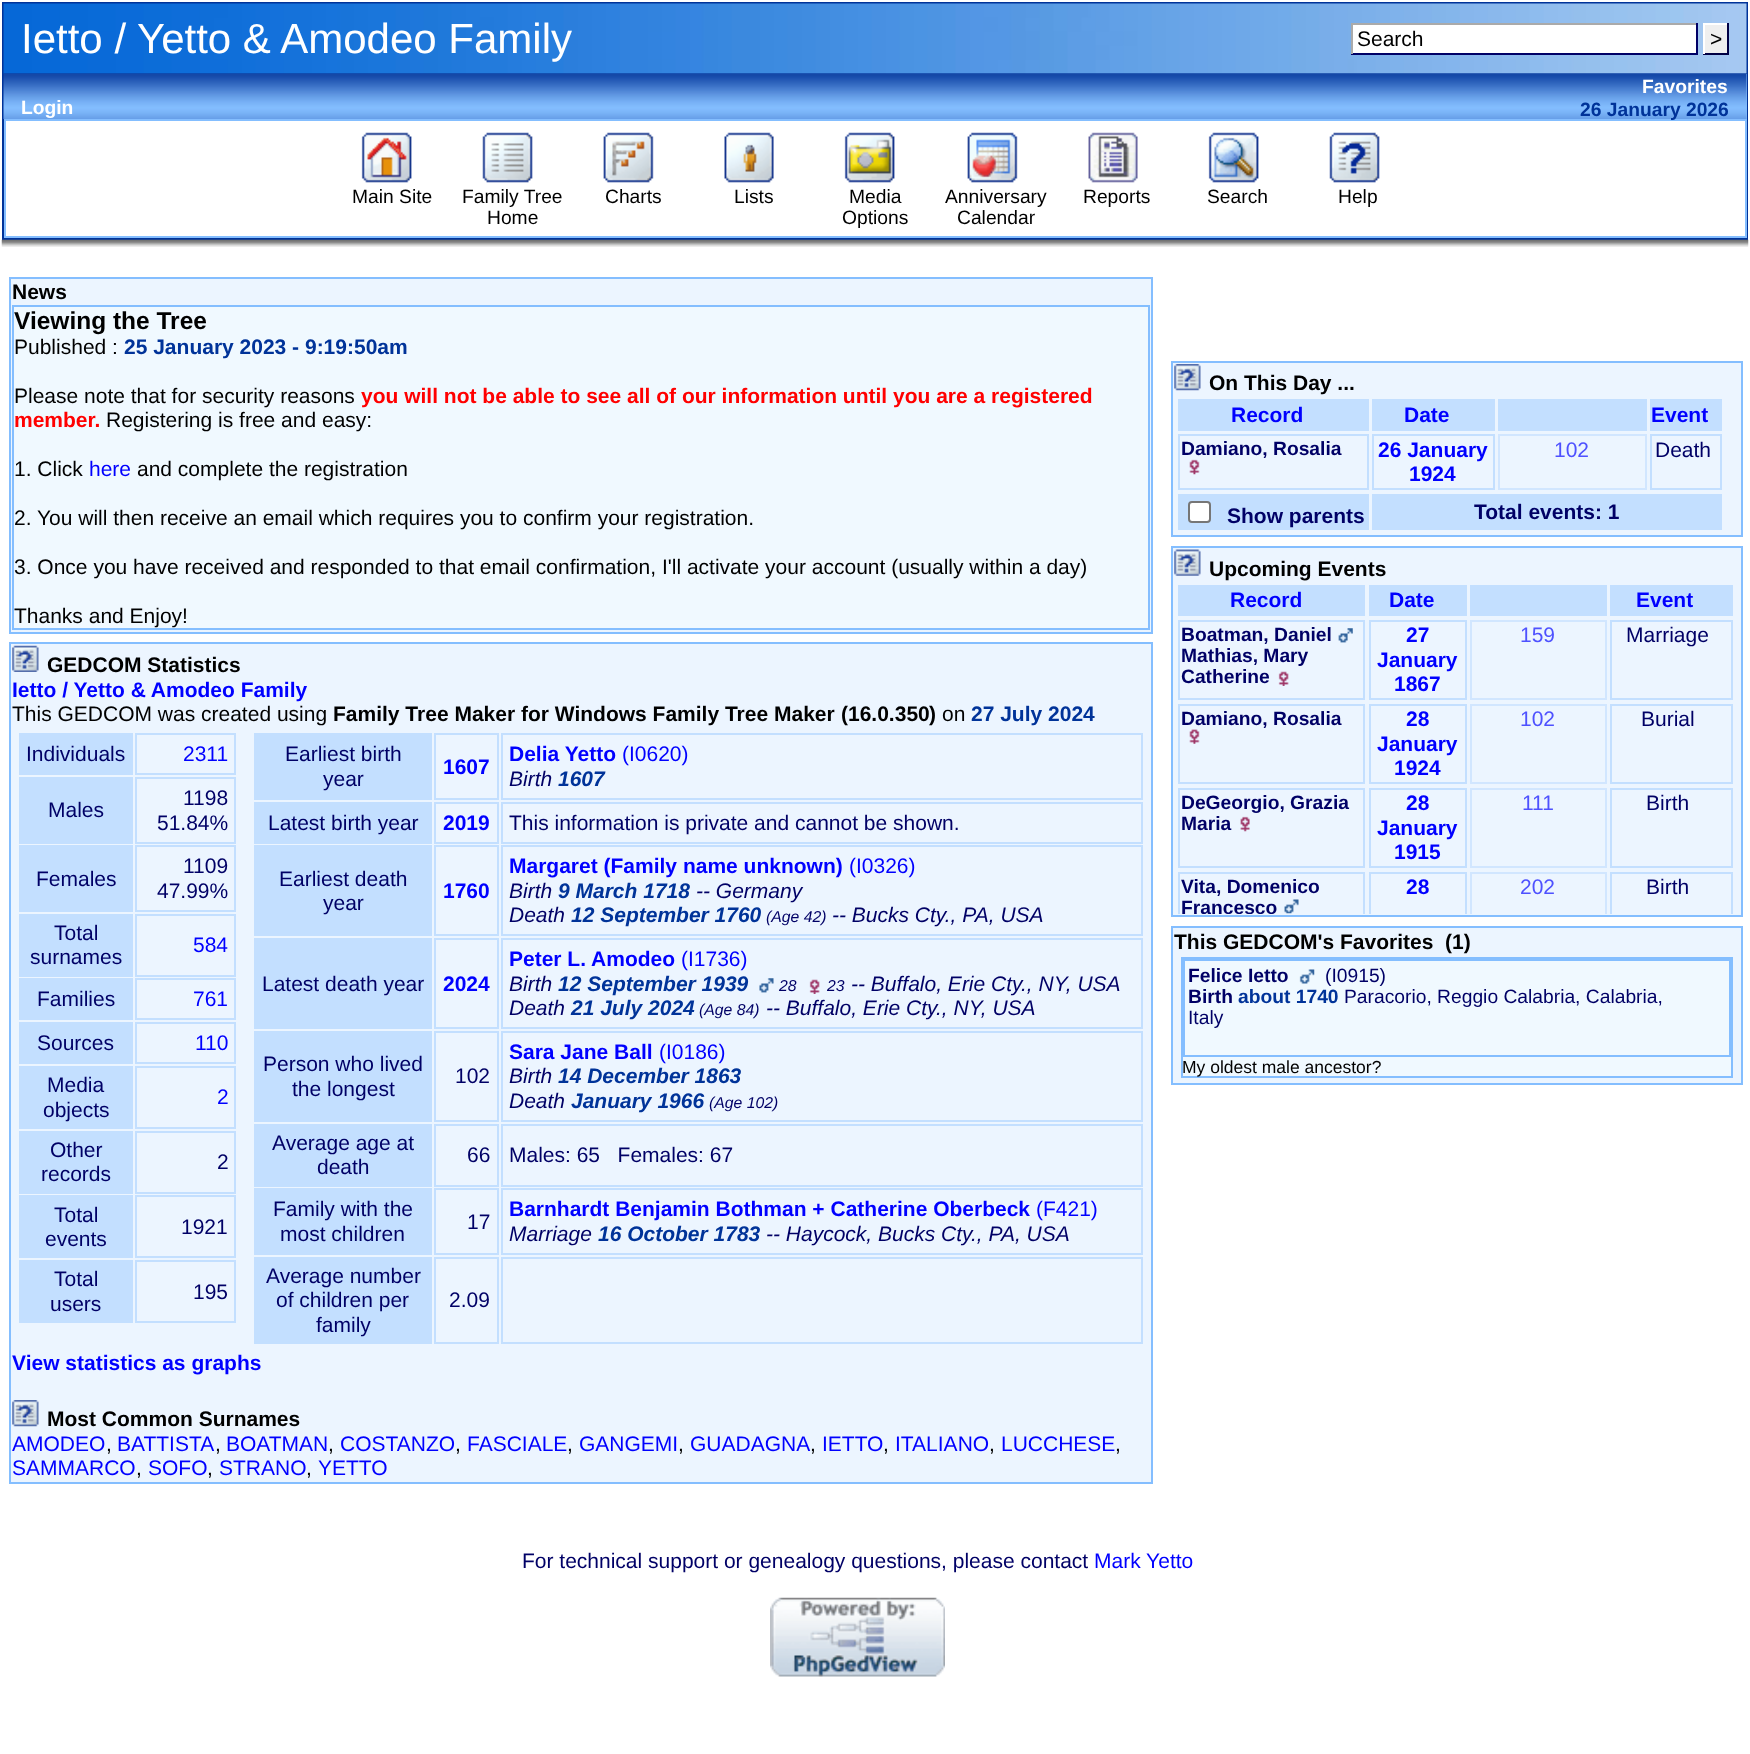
<!DOCTYPE html>
<meta charset="utf-8">
<style>body { margin: 0 } canvas { display: block }</style>
<canvas id="canvas" width="1750" height="1754"></canvas>
<img id="img1" src="img_01.png" hidden>
<img id="img2" src="img_02.png" hidden>
<img id="img3" src="img_03.png" hidden>
<img id="img4" src="img_04.png" hidden>
<img id="img5" src="img_05.png" hidden>
<img id="img6" src="img_06.png" hidden>
<img id="img7" src="img_07.png" hidden>
<img id="img8" src="img_08.png" hidden>
<img id="img9" src="img_09.png" hidden>
<img id="img10" src="img_10.png" hidden>
<img id="img11" src="img_11.png" hidden>
<img id="img12" src="img_12.png" hidden>
<img id="img13" src="img_13.png" hidden>
<img id="img14" src="img_14.png" hidden>
<img id="img15" src="img_15.png" hidden>
<img id="img16" src="img_16.png" hidden>
<img id="img17" src="img_17.png" hidden>
<img id="img18" src="img_18.png" hidden>
<img id="img19" src="img_19.png" hidden>
<img id="img20" src="img_20.png" hidden>
<img id="img21" src="img_21.png" hidden>
<img id="img22" src="img_22.png" hidden>
<img id="img23" src="img_24.png" hidden>
<img id="img24" src="img_25.png" hidden>
<img id="img25" src="img_23.png" hidden>
<script>
window.onload = function () {
	const canvas = document.getElementById("canvas");
	const ctx = canvas.getContext("2d");
	ctx.miterLimit = 4;
	ctx.fontKerning = "normal";
	function txt(s, x, y) {
		ctx.fillText(s, x, y);
	}
	function fill(x, y, w, h) {
		ctx.fillRect(x, y, w, h);
	}
	function img(id, x, y, w, h) {
		ctx.drawImage(document.getElementById(id), x, y, w, h);
	}

	ctx.fillStyle = "#FFFFFF";
	fill(0, 0, 1750, 1754);
	ctx.fillStyle = "#003399";
	fill(2, 2, 1746, 238);
	img("img1", 3, 3, 1744, 71);
	ctx.fillStyle = "#FFFFFF";
	fill(1353, 25, 343, 28);
	ctx.fillStyle = "#AAAAAA";
	fill(1351, 23, 347, 2);
	ctx.fillStyle = "#000066";
	fill(1696, 23, 2, 31);
	fill(1351, 53, 347, 2);
	ctx.fillStyle = "#AAAAAA";
	fill(1351, 23, 2, 31);
	ctx.fillStyle = "#EFEFEF";
	fill(1705, 25, 22, 28);
	ctx.fillStyle = "#FFFFFF";
	fill(1703, 23, 26, 2);
	ctx.fillStyle = "#000044";
	fill(1727, 23, 2, 31);
	fill(1703, 53, 26, 2);
	ctx.fillStyle = "#FFFFFF";
	fill(1703, 23, 2, 31);
	ctx.fillStyle = "#84BEFF";
	fill(1746, 74, 1, 45);
	img("img2", 3, 73, 1744, 46);
	ctx.fillStyle = "#FFFFFF";
	ctx.beginPath();
	ctx.rect(5, 120, 1741, 117);
	ctx.fill();
	ctx.strokeStyle = "#84BEFF";
	ctx.lineWidth = 2;
	ctx.stroke();
	img("img3", 361, 132, 51, 51);
	img("img4", 482, 132, 51, 51);
	img("img5", 603, 132, 51, 51);
	img("img6", 724, 132, 50, 51);
	img("img7", 844, 132, 51, 51);
	img("img8", 967, 132, 51, 51);
	img("img9", 1088, 132, 50, 51);
	img("img10", 1208, 132, 51, 51);
	img("img11", 1329, 132, 51, 51);
	img("img12", 1, 239, 1748, 8);
	ctx.fillStyle = "#ECF5FF";
	ctx.beginPath();
	ctx.rect(10, 278, 1142, 355);
	ctx.fill();
	ctx.stroke();
	ctx.fillStyle = "#F0F9FF";
	ctx.beginPath();
	ctx.rect(13, 306, 1136, 323);
	ctx.fill();
	ctx.stroke();
	ctx.fillStyle = "#ECF5FF";
	ctx.beginPath();
	ctx.rect(10, 643, 1142, 840);
	ctx.fill();
	ctx.stroke();
	img("img13", 12, 645, 27, 27);
	ctx.fillStyle = "#C3DFFF";
	fill(19, 733, 114, 42);
	ctx.strokeStyle = "#C3DFFF";
	ctx.strokeRect(136, 734, 99, 40);
	fill(19, 777, 114, 67);
	ctx.strokeRect(136, 778, 99, 65);
	fill(19, 845, 114, 67);
	ctx.strokeRect(136, 846, 99, 65);
	fill(19, 914, 114, 63);
	ctx.strokeRect(136, 915, 99, 61);
	fill(19, 978, 114, 42);
	ctx.strokeRect(136, 979, 99, 40);
	fill(19, 1022, 114, 42);
	ctx.strokeRect(136, 1023, 99, 40);
	fill(19, 1066, 114, 63);
	ctx.strokeRect(136, 1067, 99, 61);
	fill(19, 1131, 114, 63);
	ctx.strokeRect(136, 1132, 99, 61);
	fill(19, 1195, 114, 63);
	ctx.strokeRect(136, 1196, 99, 61);
	fill(19, 1260, 114, 63);
	ctx.strokeRect(136, 1261, 99, 61);
	fill(254, 733, 178, 67);
	ctx.strokeRect(435, 734, 63, 65);
	ctx.strokeRect(502, 734, 640, 65);
	fill(254, 802, 178, 42);
	ctx.strokeRect(435, 803, 63, 40);
	ctx.strokeRect(502, 803, 640, 40);
	fill(254, 845, 178, 91);
	ctx.strokeRect(435, 846, 63, 89);
	ctx.strokeRect(502, 846, 640, 89);
	fill(254, 938, 178, 91);
	ctx.strokeRect(435, 939, 63, 89);
	ctx.strokeRect(502, 939, 640, 89);
	img("img14", 759, 978, 15, 15);
	img("img15", 809, 979, 11, 15);
	fill(254, 1031, 178, 91);
	ctx.strokeRect(435, 1032, 63, 89);
	ctx.strokeRect(502, 1032, 640, 89);
	fill(254, 1124, 178, 63);
	ctx.strokeRect(435, 1125, 63, 61);
	ctx.strokeRect(502, 1125, 640, 61);
	fill(254, 1188, 178, 67);
	ctx.strokeRect(435, 1189, 63, 65);
	ctx.strokeRect(502, 1189, 640, 65);
	fill(254, 1257, 178, 87);
	ctx.strokeRect(435, 1258, 63, 85);
	ctx.strokeRect(502, 1258, 640, 85);
	img("img16", 12, 1400, 27, 27);
	ctx.fillStyle = "#ECF5FF";
	ctx.beginPath();
	ctx.rect(1172, 362, 570, 174);
	ctx.fill();
	ctx.strokeStyle = "#84BEFF";
	ctx.stroke();
	img("img17", 1174, 364, 27, 27);
	ctx.fillStyle = "#C3DFFF";
	fill(1178, 399, 191, 32);
	fill(1372, 399, 123, 32);
	fill(1498, 399, 149, 32);
	fill(1650, 399, 72, 32);
	ctx.strokeStyle = "#C3DFFF";
	ctx.strokeRect(1179, 435, 189, 54);
	img("img18", 1189, 459, 11, 16);
	ctx.strokeRect(1373, 435, 121, 54);
	ctx.strokeStyle = "#D1E6FF";
	ctx.strokeRect(1499, 435, 147, 54);
	ctx.strokeStyle = "#C3DFFF";
	ctx.strokeRect(1651, 435, 70, 54);
	fill(1178, 494, 191, 36);
	ctx.fillStyle = "#FFFFFF";
	ctx.beginPath();
	ctx.roundRect(1189, 502, 21, 20, 3);
	ctx.fill();
	ctx.strokeStyle = "#767676";
	ctx.stroke();
	ctx.fillStyle = "#C3DFFF";
	fill(1372, 494, 350, 36);
	ctx.fillStyle = "#ECF5FF";
	ctx.beginPath();
	ctx.rect(1172, 547, 570, 369);
	ctx.fill();
	ctx.strokeStyle = "#84BEFF";
	ctx.stroke();
	img("img19", 1174, 549, 27, 27);
	ctx.fillStyle = "#C3DFFF";
	fill(1178, 585, 187, 31);
	fill(1369, 585, 98, 31);
	fill(1470, 585, 137, 31);
	fill(1610, 585, 123, 31);
	ctx.strokeStyle = "#C3DFFF";
	ctx.strokeRect(1179, 621, 185, 78);
	img("img20", 1338, 628, 15, 15);
	img("img15", 1278, 671, 11, 15);
	ctx.strokeRect(1370, 621, 96, 78);
	ctx.strokeStyle = "#D1E6FF";
	ctx.strokeRect(1471, 621, 135, 78);
	ctx.strokeStyle = "#C3DFFF";
	ctx.strokeRect(1611, 621, 121, 78);
	ctx.strokeRect(1179, 705, 185, 78);
	img("img21", 1189, 729, 11, 15);
	ctx.strokeRect(1370, 705, 96, 78);
	ctx.strokeStyle = "#D1E6FF";
	ctx.strokeRect(1471, 705, 135, 78);
	ctx.strokeStyle = "#C3DFFF";
	ctx.strokeRect(1611, 705, 121, 78);
	ctx.strokeRect(1179, 789, 185, 78);
	img("img22", 1240, 816, 10, 16);
	ctx.strokeRect(1370, 789, 96, 78);
	ctx.strokeStyle = "#D1E6FF";
	ctx.strokeRect(1471, 789, 135, 78);
	ctx.strokeStyle = "#C3DFFF";
	ctx.strokeRect(1611, 789, 121, 78);
	ctx.fillStyle = "#ECF5FF";
	ctx.beginPath();
	ctx.rect(1172, 927, 570, 157);
	ctx.fill();
	ctx.strokeStyle = "#84BEFF";
	ctx.stroke();
	ctx.save();
	ctx.beginPath();
	ctx.rect(1174, 581, 566, 333);
	ctx.clip();
	ctx.strokeStyle = "#D1E6FF";
	ctx.strokeRect(1471, 873, 135, 78);
	ctx.strokeStyle = "#C3DFFF";
	ctx.strokeRect(1611, 873, 121, 78);
	ctx.restore();
	ctx.fillStyle = "#F0F9FF";
	fill(1183, 961, 548, 115);
	ctx.strokeRect(1182, 958, 550, 119);
	ctx.strokeRect(1184, 960, 546, 96);
	img("img23", 1299, 969, 16, 15);
	img("img24", 770, 1597, 175, 80);
	ctx.font = "42px Liberation Sans";
	ctx.fillStyle = "#FFFFFF";
	txt("Ietto / Yetto & Amodeo Family", 21, 53);
	ctx.font = "21px Liberation Sans";
	ctx.fillStyle = "#000000";
	txt("Search", 1357, 46);
	txt(">", 1710, 46);
	ctx.font = "bold 19.25px Liberation Sans";
	ctx.fillStyle = "#FFFFFF";
	txt("Login", 21, 114);
	txt("Favorites", 1642, 93);
	ctx.fillStyle = "#003399";
	txt("26 January 2026", 1580, 116);
	ctx.font = "19.25px Liberation Sans";
	ctx.fillStyle = "#000000";
	txt("Main Site", 352, 203);
	txt("Family Tree", 462, 203);
	txt("Home", 487, 224);
	txt("Charts", 605, 203);
	txt("Lists", 734, 203);
	txt("Media", 849, 203);
	txt("Options", 842, 224);
	txt("Anniversary", 945, 203);
	txt("Calendar", 957, 224);
	txt("Reports", 1083, 203);
	txt("Search", 1207, 203);
	txt("Help", 1338, 203);
	ctx.font = "bold 21px Liberation Sans";
	txt("News", 12, 299);
	ctx.font = "bold 24.5px Liberation Sans";
	txt("Viewing the Tree", 14, 329);
	ctx.font = "21px Liberation Sans";
	txt("Published :", 14, 354);
	ctx.font = "bold 21px Liberation Sans";
	ctx.fillStyle = "#003399";
	txt("25 January 2023 - 9:19:50am", 124, 354);
	ctx.font = "21px Liberation Sans";
	ctx.fillStyle = "#000000";
	txt("Please note that for security reasons", 14, 403);
	ctx.font = "bold 21px Liberation Sans";
	ctx.fillStyle = "#FF0000";
	txt("you will not be able to see all of our information until you are a registered", 361, 403);
	txt("member.", 14, 427);
	ctx.font = "21px Liberation Sans";
	ctx.fillStyle = "#000000";
	txt("Registering is free and easy:", 106, 427);
	txt("1. Click", 14, 476);
	ctx.fillStyle = "#0000FF";
	txt("here", 89, 476);
	ctx.fillStyle = "#000000";
	txt("and complete the registration", 137, 476);
	txt("2. You will then receive an email which requires you to confirm your registration.", 14, 525);
	txt("3. Once you have received and responded to that email confirmation, I'll activate your account (usually within a day)", 14, 574);
	txt("Thanks and Enjoy!", 14, 623);
	ctx.font = "bold 21px Liberation Sans";
	txt("GEDCOM Statistics", 47, 672);
	ctx.fillStyle = "#0000FF";
	txt("Ietto / Yetto & Amodeo Family", 12, 697);
	ctx.font = "21px Liberation Sans";
	ctx.fillStyle = "#000000";
	txt("This GEDCOM was created using", 12, 721);
	ctx.font = "bold 21px Liberation Sans";
	txt("Family Tree Maker for Windows Family Tree Maker", 333, 721);
	ctx.direction = "rtl";
	txt(")", 848, 721);
	ctx.direction = "ltr";
	txt("16.0.350", 848, 721);
	ctx.direction = "rtl";
	txt("(", 936, 721);
	ctx.direction = "ltr";
	ctx.font = "21px Liberation Sans";
	txt("on", 942, 721);
	ctx.font = "bold 21px Liberation Sans";
	ctx.fillStyle = "#003399";
	txt("27 July 2024", 971, 721);
	ctx.font = "21px Liberation Sans";
	ctx.fillStyle = "#000066";
	txt("Individuals", 26, 761);
	ctx.fillStyle = "#0000FF";
	txt("2311", 183, 761);
	ctx.fillStyle = "#000066";
	txt("Males", 48, 817);
	txt("1198", 183, 805);
	txt("51.84%", 157, 830);
	txt("Females", 36, 886);
	txt("1109", 183, 873);
	txt("47.99%", 157, 898);
	txt("Total", 54, 940);
	txt("surnames", 30, 964);
	ctx.fillStyle = "#0000FF";
	txt("584", 193, 952);
	ctx.fillStyle = "#000066";
	txt("Families", 37, 1006);
	ctx.fillStyle = "#0000FF";
	txt("761", 193, 1006);
	ctx.fillStyle = "#000066";
	txt("Sources", 37, 1050);
	ctx.fillStyle = "#0000FF";
	txt("110", 195, 1050);
	ctx.fillStyle = "#000066";
	txt("Media", 47, 1092);
	txt("objects", 43, 1117);
	ctx.fillStyle = "#0000FF";
	txt("2", 217, 1104);
	ctx.fillStyle = "#000066";
	txt("Other", 50, 1157);
	txt("records", 41, 1181);
	txt("2", 217, 1169);
	txt("Total", 54, 1222);
	txt("events", 45, 1246);
	txt("1921", 181, 1234);
	txt("Total", 54, 1286);
	txt("users", 50, 1311);
	txt("195", 193, 1299);
	txt("Earliest birth", 285, 761);
	txt("year", 323, 786);
	ctx.font = "bold 21px Liberation Sans";
	ctx.fillStyle = "#0000FF";
	txt("1607", 443, 774);
	txt("Delia Yetto", 509, 761);
	ctx.font = "21px Liberation Sans";
	txt("(I0620)", 622, 761);
	ctx.font = "italic 21px Liberation Sans";
	ctx.fillStyle = "#000066";
	txt("Birth", 509, 786);
	ctx.font = "italic bold 21px Liberation Sans";
	ctx.fillStyle = "#003399";
	txt("1607", 558, 786);
	ctx.font = "21px Liberation Sans";
	ctx.fillStyle = "#000066";
	txt("Latest birth year", 268, 830);
	ctx.font = "bold 21px Liberation Sans";
	ctx.fillStyle = "#0000FF";
	txt("2019", 443, 830);
	ctx.font = "21px Liberation Sans";
	ctx.fillStyle = "#000066";
	txt("This information is private and cannot be shown.", 509, 830);
	txt("Earliest death", 279, 886);
	txt("year", 323, 910);
	ctx.font = "bold 21px Liberation Sans";
	ctx.fillStyle = "#0000FF";
	txt("1760", 443, 898);
	txt("Margaret (Family name unknown)", 509, 873);
	ctx.font = "21px Liberation Sans";
	txt("(I0326)", 849, 873);
	ctx.font = "italic 21px Liberation Sans";
	ctx.fillStyle = "#000066";
	txt("Birth", 509, 898);
	ctx.font = "italic bold 21px Liberation Sans";
	ctx.fillStyle = "#003399";
	txt("9 March 1718", 558, 898);
	ctx.font = "italic 21px Liberation Sans";
	ctx.fillStyle = "#000066";
	txt("-- Germany", 696, 898);
	txt("Death", 509, 922);
	ctx.font = "italic bold 21px Liberation Sans";
	ctx.fillStyle = "#003399";
	txt("12 September 1760", 571, 922);
	ctx.font = "italic 15.75px Liberation Sans";
	ctx.fillStyle = "#000066";
	txt("(Age 42)", 766, 922);
	ctx.font = "italic 21px Liberation Sans";
	txt("-- Bucks Cty., PA, USA", 832, 922);
	ctx.font = "21px Liberation Sans";
	txt("Latest death year", 262, 991);
	ctx.font = "bold 21px Liberation Sans";
	ctx.fillStyle = "#0000FF";
	txt("2024", 443, 991);
	txt("Peter L. Amodeo", 509, 966);
	ctx.font = "21px Liberation Sans";
	txt("(I1736)", 681, 966);
	ctx.font = "italic 21px Liberation Sans";
	ctx.fillStyle = "#000066";
	txt("Birth", 509, 991);
	ctx.font = "italic bold 21px Liberation Sans";
	ctx.fillStyle = "#003399";
	txt("12 September 1939", 558, 991);
	ctx.font = "italic 15.75px Liberation Sans";
	ctx.fillStyle = "#000066";
	txt("28", 779, 991);
	txt("23", 827, 991);
	ctx.font = "italic 21px Liberation Sans";
	txt("-- Buffalo, Erie Cty., NY, USA", 851, 991);
	txt("Death", 509, 1015);
	ctx.font = "italic bold 21px Liberation Sans";
	ctx.fillStyle = "#003399";
	txt("21 July 2024", 571, 1015);
	ctx.font = "italic 15.75px Liberation Sans";
	ctx.fillStyle = "#000066";
	txt("(Age 84)", 699, 1015);
	ctx.font = "italic 21px Liberation Sans";
	txt("-- Buffalo, Erie Cty., NY, USA", 766, 1015);
	ctx.font = "21px Liberation Sans";
	txt("Person who lived", 263, 1071);
	txt("the longest", 292, 1096);
	txt("102", 455, 1083);
	ctx.font = "bold 21px Liberation Sans";
	ctx.fillStyle = "#0000FF";
	txt("Sara Jane Ball", 509, 1059);
	ctx.font = "21px Liberation Sans";
	txt("(I0186)", 659, 1059);
	ctx.font = "italic 21px Liberation Sans";
	ctx.fillStyle = "#000066";
	txt("Birth", 509, 1083);
	ctx.font = "italic bold 21px Liberation Sans";
	ctx.fillStyle = "#003399";
	txt("14 December 1863", 558, 1083);
	ctx.font = "italic 21px Liberation Sans";
	ctx.fillStyle = "#000066";
	txt("Death", 509, 1108);
	ctx.font = "italic bold 21px Liberation Sans";
	ctx.fillStyle = "#003399";
	txt("January 1966", 571, 1108);
	ctx.font = "italic 15.75px Liberation Sans";
	ctx.fillStyle = "#000066";
	txt("(Age 102)", 709, 1108);
	ctx.font = "21px Liberation Sans";
	txt("Average age at", 272, 1150);
	txt("death", 317, 1174);
	txt("66", 467, 1162);
	txt("Males: 65   Females: 67", 509, 1162);
	txt("Family with the", 273, 1216);
	txt("most children", 280, 1241);
	txt("17", 467, 1229);
	ctx.font = "bold 21px Liberation Sans";
	ctx.fillStyle = "#0000FF";
	txt("Barnhardt Benjamin Bothman + Catherine Oberbeck", 509, 1216);
	ctx.font = "21px Liberation Sans";
	txt("(F421)", 1036, 1216);
	ctx.font = "italic 21px Liberation Sans";
	ctx.fillStyle = "#000066";
	txt("Marriage", 509, 1241);
	ctx.font = "italic bold 21px Liberation Sans";
	ctx.fillStyle = "#003399";
	txt("16 October 1783", 598, 1241);
	ctx.font = "italic 21px Liberation Sans";
	ctx.fillStyle = "#000066";
	txt("-- Haycock, Bucks Cty., PA, USA", 766, 1241);
	ctx.font = "21px Liberation Sans";
	txt("Average number", 266, 1283);
	txt("of children per", 276, 1307);
	txt("family", 316, 1332);
	txt("2.09", 449, 1307);
	ctx.font = "bold 21px Liberation Sans";
	ctx.fillStyle = "#0000FF";
	txt("View statistics as graphs", 12, 1370);
	ctx.fillStyle = "#000000";
	txt("Most Common Surnames", 47, 1426);
	ctx.font = "21px Liberation Sans";
	ctx.fillStyle = "#0000FF";
	txt("AMODEO", 12, 1451);
	ctx.fillStyle = "#000000";
	txt(",", 106, 1451);
	ctx.fillStyle = "#0000FF";
	txt("BATTISTA", 117, 1451);
	ctx.fillStyle = "#000000";
	txt(",", 215, 1451);
	ctx.fillStyle = "#0000FF";
	txt("BOATMAN", 226, 1451);
	ctx.fillStyle = "#000000";
	txt(",", 328, 1451);
	ctx.fillStyle = "#0000FF";
	txt("COSTANZO", 340, 1451);
	ctx.fillStyle = "#000000";
	txt(",", 455, 1451);
	ctx.fillStyle = "#0000FF";
	txt("FASCIALE", 467, 1451);
	ctx.fillStyle = "#000000";
	txt(",", 567, 1451);
	ctx.fillStyle = "#0000FF";
	txt("GANGEMI", 579, 1451);
	ctx.fillStyle = "#000000";
	txt(",", 678, 1451);
	ctx.fillStyle = "#0000FF";
	txt("GUADAGNA", 690, 1451);
	ctx.fillStyle = "#000000";
	txt(",", 810, 1451);
	ctx.fillStyle = "#0000FF";
	txt("IETTO", 822, 1451);
	ctx.fillStyle = "#000000";
	txt(",", 883, 1451);
	ctx.fillStyle = "#0000FF";
	txt("ITALIANO", 895, 1451);
	ctx.fillStyle = "#000000";
	txt(",", 989, 1451);
	ctx.fillStyle = "#0000FF";
	txt("LUCCHESE", 1001, 1451);
	ctx.fillStyle = "#000000";
	txt(",", 1115, 1451);
	ctx.fillStyle = "#0000FF";
	txt("SAMMARCO", 12, 1475);
	ctx.fillStyle = "#000000";
	txt(",", 136, 1475);
	ctx.fillStyle = "#0000FF";
	txt("SOFO", 148, 1475);
	ctx.fillStyle = "#000000";
	txt(",", 207, 1475);
	ctx.fillStyle = "#0000FF";
	txt("STRANO", 219, 1475);
	ctx.fillStyle = "#000000";
	txt(",", 306, 1475);
	ctx.fillStyle = "#0000FF";
	txt("YETTO", 318, 1475);
	ctx.font = "bold 21px Liberation Sans";
	ctx.fillStyle = "#000000";
	txt("On This Day ...", 1209, 390);
	ctx.fillStyle = "#0000FF";
	txt("Record", 1231, 422);
	txt("Date", 1404, 422);
	txt("Event", 1651, 422);
	ctx.font = "bold 19.25px Liberation Sans";
	ctx.fillStyle = "#000066";
	txt("Damiano, Rosalia", 1181, 455);
	ctx.font = "bold 21px Liberation Sans";
	ctx.fillStyle = "#0000FF";
	txt("26 January", 1378, 457);
	txt("1924", 1409, 481);
	ctx.font = "21px Liberation Sans";
	ctx.fillStyle = "#4E51FF";
	txt("102", 1554, 457);
	ctx.fillStyle = "#000066";
	txt("Death", 1655, 457);
	ctx.font = "bold 21px Liberation Sans";
	txt("Show parents", 1227, 523);
	txt("Total events: 1", 1474, 519);
	ctx.fillStyle = "#000000";
	txt("Upcoming Events", 1209, 576);
	ctx.fillStyle = "#0000FF";
	txt("Record", 1230, 607);
	txt("Date", 1389, 607);
	txt("Event", 1636, 607);
	ctx.font = "bold 19.25px Liberation Sans";
	ctx.fillStyle = "#000066";
	txt("Boatman, Daniel", 1181, 641);
	txt("Mathias, Mary", 1181, 662);
	txt("Catherine", 1181, 683);
	ctx.font = "bold 21px Liberation Sans";
	ctx.fillStyle = "#0000FF";
	txt("27", 1406, 642);
	txt("January", 1377, 667);
	txt("1867", 1394, 691);
	ctx.font = "21px Liberation Sans";
	ctx.fillStyle = "#4E51FF";
	txt("159", 1520, 642);
	ctx.fillStyle = "#000066";
	txt("Marriage", 1626, 642);
	ctx.font = "bold 19.25px Liberation Sans";
	txt("Damiano, Rosalia", 1181, 725);
	ctx.font = "bold 21px Liberation Sans";
	ctx.fillStyle = "#0000FF";
	txt("28", 1406, 726);
	txt("January", 1377, 751);
	txt("1924", 1394, 775);
	ctx.font = "21px Liberation Sans";
	ctx.fillStyle = "#4E51FF";
	txt("102", 1520, 726);
	ctx.fillStyle = "#000066";
	txt("Burial", 1641, 726);
	ctx.font = "bold 19.25px Liberation Sans";
	txt("DeGeorgio, Grazia", 1181, 809);
	txt("Maria", 1181, 830);
	ctx.font = "bold 21px Liberation Sans";
	ctx.fillStyle = "#0000FF";
	txt("28", 1406, 810);
	txt("January", 1377, 835);
	txt("1915", 1394, 859);
	ctx.font = "21px Liberation Sans";
	ctx.fillStyle = "#4E51FF";
	txt("111", 1522, 810);
	ctx.fillStyle = "#000066";
	txt("Birth", 1646, 810);
	ctx.fillStyle = "#4E51FF";
	txt("202", 1520, 894);
	ctx.fillStyle = "#000066";
	txt("Birth", 1646, 894);
	ctx.font = "bold 21px Liberation Sans";
	ctx.fillStyle = "#000000";
	txt("This GEDCOM's Favorites  (1)", 1174, 949);
	ctx.save();
	ctx.beginPath();
	ctx.rect(1174, 581, 566, 333);
	ctx.clip();
	ctx.strokeStyle = "#C3DFFF";
	ctx.strokeRect(1370, 873, 96, 78);
	ctx.restore();
	ctx.fillStyle = "#0000FF";
	txt("28", 1406, 894);
	ctx.save();
	ctx.beginPath();
	ctx.rect(1174, 581, 566, 333);
	ctx.clip();
	ctx.strokeStyle = "#C3DFFF";
	ctx.strokeRect(1179, 873, 185, 78);
	ctx.restore();
	img("img25", 1284, 899, 15, 15);
	ctx.save();
	ctx.beginPath();
	ctx.rect(1174, 581, 566, 333);
	ctx.clip();
	ctx.font = "bold 19.25px Liberation Sans";
	ctx.fillStyle = "#000066";
	txt("Francesco", 1181, 914);
	ctx.restore();
	ctx.font = "bold 19.25px Liberation Sans";
	ctx.fillStyle = "#000066";
	txt("Vita, Domenico", 1181, 893);
	txt("Felice Ietto", 1188, 982);
	ctx.font = "19.25px Liberation Sans";
	txt("(I0915)", 1325, 982);
	ctx.font = "bold 19.25px Liberation Sans";
	txt("Birth", 1188, 1003);
	ctx.fillStyle = "#003399";
	txt("about 1740", 1238, 1003);
	ctx.font = "19.25px Liberation Sans";
	ctx.fillStyle = "#000066";
	txt("Paracorio, Reggio Calabria, Calabria,", 1344, 1003);
	txt("Italy", 1188, 1024);
	ctx.font = "17.5px Liberation Sans";
	ctx.fillStyle = "#000000";
	txt("My oldest male ancestor?", 1182, 1073);
	ctx.font = "21px Liberation Sans";
	ctx.fillStyle = "#000066";
	txt("For technical support or genealogy questions, please contact", 522, 1568);
	ctx.fillStyle = "#0000FF";
	txt("Mark Yetto", 1094, 1568);
};
</script>
